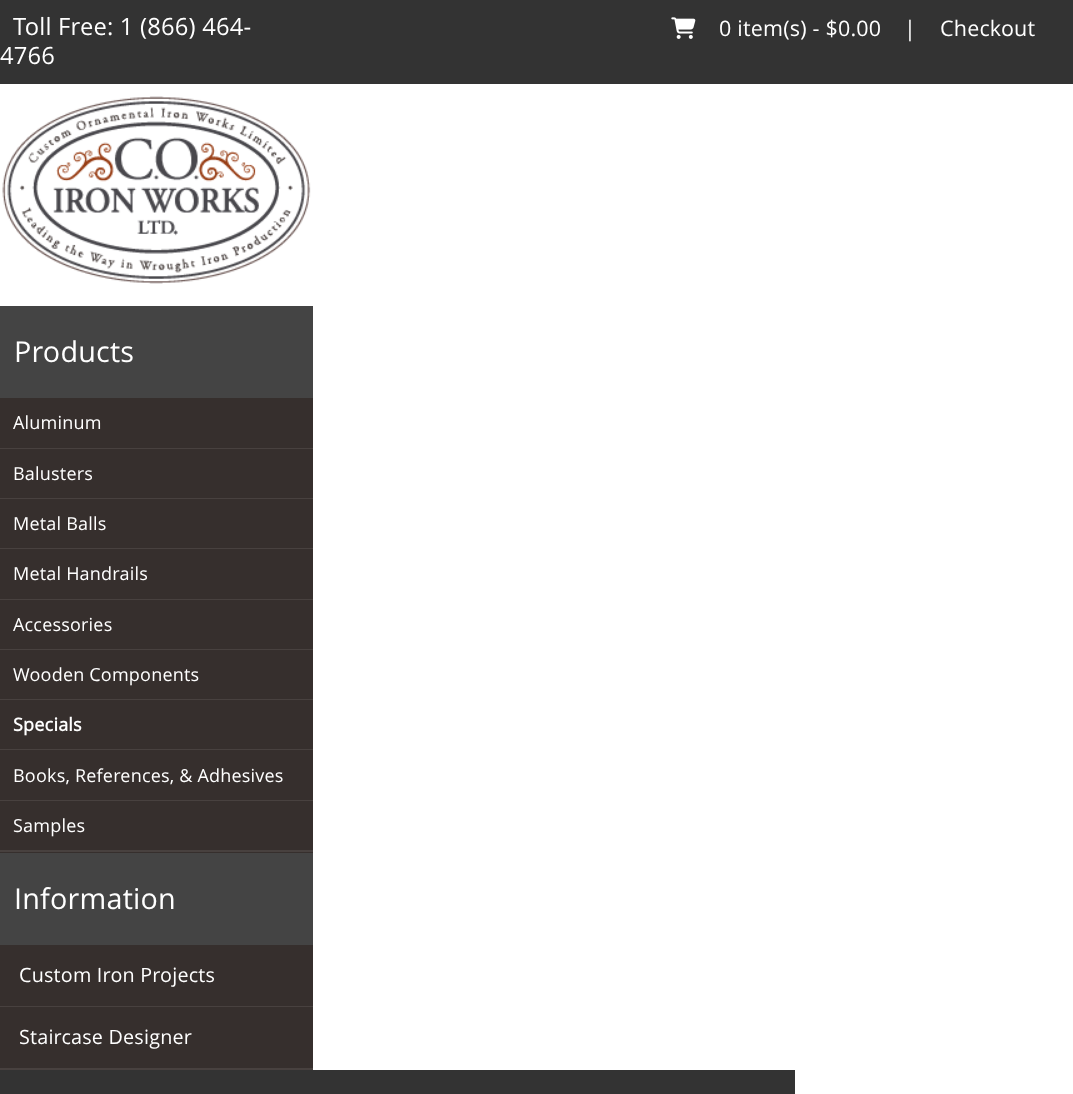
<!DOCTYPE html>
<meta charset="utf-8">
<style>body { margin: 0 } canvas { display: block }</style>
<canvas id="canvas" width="1073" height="1094"></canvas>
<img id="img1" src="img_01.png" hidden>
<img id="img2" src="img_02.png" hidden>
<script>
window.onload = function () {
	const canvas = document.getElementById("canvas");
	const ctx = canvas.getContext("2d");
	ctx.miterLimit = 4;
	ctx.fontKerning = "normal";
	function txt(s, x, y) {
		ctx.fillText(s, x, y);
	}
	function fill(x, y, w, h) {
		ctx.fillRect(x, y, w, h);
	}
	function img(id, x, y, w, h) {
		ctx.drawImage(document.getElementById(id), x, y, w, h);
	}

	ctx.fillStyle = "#333333";
	fill(0, 0, 1073, 1094);
	img("img1", 671, 17, 25, 22);
	ctx.fillStyle = "#FFFFFF";
	fill(0, 84, 1073, 222);
	img("img2", 2, 96, 309, 188);
	fill(313, 306, 760, 788);
	ctx.fillStyle = "#362F2D";
	fill(0, 398, 313, 455);
	ctx.fillStyle = "#48413F";
	fill(0, 850, 313, 2);
	ctx.fillStyle = "#444444";
	fill(0, 306, 313, 92);
	ctx.fillStyle = "#48413F";
	fill(0, 448, 313, 1);
	fill(0, 498, 313, 1);
	fill(0, 548, 313, 1);
	fill(0, 599, 313, 1);
	fill(0, 649, 313, 1);
	fill(0, 699, 313, 1);
	fill(0, 749, 313, 1);
	fill(0, 800, 313, 1);
	ctx.fillStyle = "#362F2D";
	fill(0, 945, 313, 123);
	ctx.fillStyle = "#48413F";
	fill(0, 1068, 313, 2);
	ctx.fillStyle = "#444444";
	fill(0, 853, 313, 92);
	ctx.fillStyle = "#48413F";
	fill(0, 1006, 313, 1);
	ctx.fillStyle = "#333333";
	fill(313, 1070, 482, 24);
	ctx.letterSpacing = "0.2px";
	ctx.font = "23.75px Open Sans";
	ctx.fillStyle = "#FFFFFF";
	txt("Toll Free: 1 (866) 464-", 13, 35);
	txt("4766", 0, 64);
	ctx.font = "21.5px Open Sans";
	txt("0 item(s) - $0.00", 719, 36);
	txt("|", 904, 36);
	txt("Checkout", 940, 36);
	ctx.font = "28.75px Open Sans";
	txt("Products", 14, 362);
	ctx.font = "18px Open Sans";
	txt("Aluminum", 13, 429);
	txt("Balusters", 13, 480);
	txt("Metal Balls", 13, 530);
	txt("Metal Handrails", 13, 580);
	txt("Accessories", 13, 631);
	txt("Wooden Components", 13, 681);
	ctx.font = "bold 18px Open Sans";
	txt("Specials", 13, 731);
	ctx.font = "18px Open Sans";
	txt("Books, References, & Adhesives", 13, 782);
	txt("Samples", 13, 832);
	ctx.font = "28.75px Open Sans";
	txt("Information", 14, 909);
	ctx.font = "19.75px Open Sans";
	txt("Custom Iron Projects", 19, 982);
	txt("Staircase Designer", 19, 1044);
};
</script>
